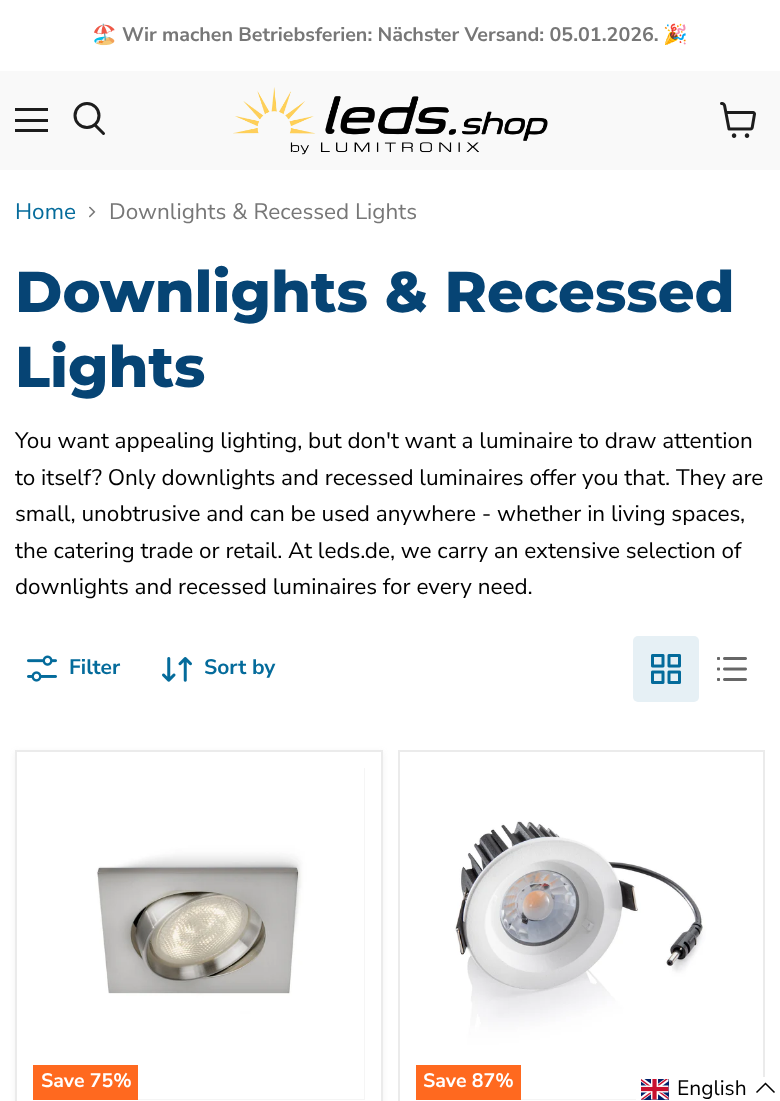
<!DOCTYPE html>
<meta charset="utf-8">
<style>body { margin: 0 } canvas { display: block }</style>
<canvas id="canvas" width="780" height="1101"></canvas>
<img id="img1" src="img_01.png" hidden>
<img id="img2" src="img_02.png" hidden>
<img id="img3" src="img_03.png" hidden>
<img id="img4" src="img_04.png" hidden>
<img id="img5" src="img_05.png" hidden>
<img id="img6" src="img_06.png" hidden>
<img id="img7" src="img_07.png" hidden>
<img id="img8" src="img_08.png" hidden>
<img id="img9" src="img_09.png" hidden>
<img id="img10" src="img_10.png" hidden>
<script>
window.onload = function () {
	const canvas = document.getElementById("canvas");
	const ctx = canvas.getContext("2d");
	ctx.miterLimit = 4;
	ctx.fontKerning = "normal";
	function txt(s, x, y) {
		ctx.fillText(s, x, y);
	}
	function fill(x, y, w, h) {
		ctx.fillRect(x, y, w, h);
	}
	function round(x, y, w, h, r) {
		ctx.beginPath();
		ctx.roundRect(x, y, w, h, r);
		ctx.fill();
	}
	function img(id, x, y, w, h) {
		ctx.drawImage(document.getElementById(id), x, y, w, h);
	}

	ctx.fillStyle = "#FFFFFF";
	fill(0, 0, 780, 1101);
	ctx.fillStyle = "#F9F9F9";
	fill(0, 71, 780, 99);
	ctx.fillStyle = "#1D1D1D";
	fill(15, 108, 33, 3);
	fill(15, 119, 33, 3);
	fill(15, 129, 33, 3);
	ctx.beginPath();
	ctx.moveTo(103.5, 133.5);
	ctx.lineTo(95, 125);
	ctx.strokeStyle = "#1D1D1D";
	ctx.lineWidth = 3;
	ctx.lineCap = "round";
	ctx.stroke();
	ctx.beginPath();
	ctx.arc(87, 115.5, 12, 0, Math.PI * 2);
	ctx.stroke();
	img("img1", 233, 87, 315, 68);
	img("img2", 720, 102, 36, 36);
	img("img3", 89, 206, 7, 12);
	img("img4", 27, 655, 30, 27);
	img("img5", 162, 657, 30, 25);
	ctx.fillStyle = "#E6F0F5";
	round(633, 636, 66, 66, 5);
	img("img6", 651, 654, 30, 30);
	img("img7", 717, 657, 30, 24);
	ctx.fillStyle = "rgba(128, 128, 128, 0.11)";
	ctx.filter = "blur(3px)";
	ctx.beginPath();
	ctx.rect(15, 752, 368, 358);
	ctx.fill();
	ctx.filter = "none";
	ctx.fillStyle = "#FFFFFF";
	ctx.beginPath();
	ctx.rect(16, 751, 366, 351);
	ctx.fill();
	ctx.strokeStyle = "#EBEBEB";
	ctx.lineWidth = 2;
	ctx.stroke();
	ctx.fillStyle = "#F5F5F5";
	fill(138, 768, 227, 332);
	img("img8", 33, 768, 331, 331);
	ctx.fillStyle = "#FF691F";
	fill(33, 1065, 105, 35);
	ctx.strokeRect(399, 751, 365, 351);
	img("img9", 416, 768, 331, 331);
	fill(416, 1065, 105, 35);
	ctx.fillStyle = "#F5F5F5";
	fill(521, 1099, 115, 1);
	ctx.fillStyle = "#FFFFFF";
	fill(763, 1077, 2, 24);
	img("img10", 641, 1079, 28, 21);
	ctx.beginPath();
	ctx.moveTo(774.5, 1092.5);
	ctx.lineTo(765.5, 1083.5);
	ctx.lineTo(756.5, 1092.5);
	ctx.strokeStyle = "#000000";
	ctx.lineWidth = 1.5;
	ctx.lineCap = "butt";
	ctx.stroke();
	ctx.font = "bold 19.7px Noto Color Emoji";
	ctx.fillStyle = "#777777";
	txt("🏖️", 92, 41);
	ctx.font = "bold 19.7px Nunito Sans";
	txt("Wir machen Betriebsferien: Nächster Versand: 05.01.2026.", 122, 41);
	ctx.font = "bold 19.7px Noto Color Emoji";
	txt("🎉", 663, 41);
	ctx.font = "22.5px Nunito Sans";
	ctx.fillStyle = "#046B9B";
	txt("Home", 15, 219);
	ctx.fillStyle = "#777777";
	txt("Downlights & Recessed Lights", 109, 219);
	ctx.font = "800 57.4px Montserrat";
	ctx.fillStyle = "#064474";
	txt("Downlights & Recessed", 15, 312);
	txt("Lights", 15, 387);
	ctx.font = "22.5px Nunito Sans";
	ctx.fillStyle = "#000000";
	txt("You want appealing lighting, but don't want a luminaire to draw attention", 15, 448);
	txt("to itself? Only downlights and recessed luminaires offer you that. They are", 15, 485);
	txt("small, unobtrusive and can be used anywhere - whether in living spaces,", 15, 521);
	txt("the catering trade or retail. At leds.de, we carry an extensive selection of", 15, 558);
	txt("downlights and recessed luminaires for every need.", 15, 594);
	ctx.font = "bold 21px Nunito Sans";
	ctx.fillStyle = "#046B9B";
	txt("Filter", 69, 674);
	txt("Sort by", 204, 674);
	ctx.font = "bold 19.5px Nunito Sans";
	ctx.fillStyle = "#FFFFFF";
	txt("Save 75%", 41, 1087);
	txt("Save 87%", 423, 1087);
	ctx.font = "21px Nunito Sans";
	ctx.fillStyle = "#000000";
	txt("English", 677, 1095);
};
</script>
